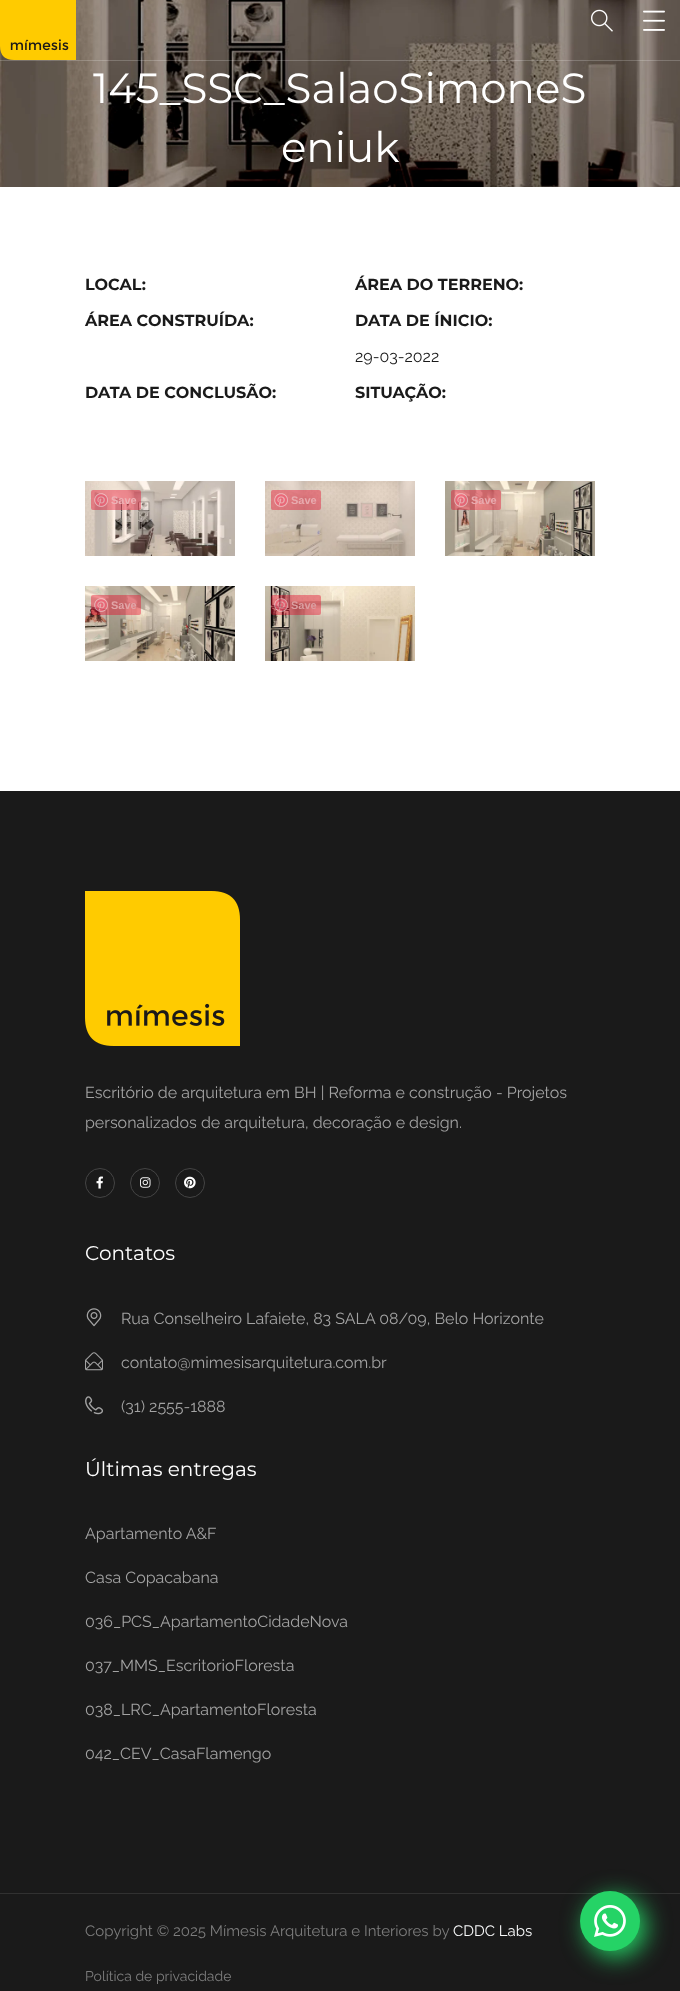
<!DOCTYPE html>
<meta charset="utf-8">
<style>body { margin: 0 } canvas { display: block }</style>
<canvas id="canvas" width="680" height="1991"></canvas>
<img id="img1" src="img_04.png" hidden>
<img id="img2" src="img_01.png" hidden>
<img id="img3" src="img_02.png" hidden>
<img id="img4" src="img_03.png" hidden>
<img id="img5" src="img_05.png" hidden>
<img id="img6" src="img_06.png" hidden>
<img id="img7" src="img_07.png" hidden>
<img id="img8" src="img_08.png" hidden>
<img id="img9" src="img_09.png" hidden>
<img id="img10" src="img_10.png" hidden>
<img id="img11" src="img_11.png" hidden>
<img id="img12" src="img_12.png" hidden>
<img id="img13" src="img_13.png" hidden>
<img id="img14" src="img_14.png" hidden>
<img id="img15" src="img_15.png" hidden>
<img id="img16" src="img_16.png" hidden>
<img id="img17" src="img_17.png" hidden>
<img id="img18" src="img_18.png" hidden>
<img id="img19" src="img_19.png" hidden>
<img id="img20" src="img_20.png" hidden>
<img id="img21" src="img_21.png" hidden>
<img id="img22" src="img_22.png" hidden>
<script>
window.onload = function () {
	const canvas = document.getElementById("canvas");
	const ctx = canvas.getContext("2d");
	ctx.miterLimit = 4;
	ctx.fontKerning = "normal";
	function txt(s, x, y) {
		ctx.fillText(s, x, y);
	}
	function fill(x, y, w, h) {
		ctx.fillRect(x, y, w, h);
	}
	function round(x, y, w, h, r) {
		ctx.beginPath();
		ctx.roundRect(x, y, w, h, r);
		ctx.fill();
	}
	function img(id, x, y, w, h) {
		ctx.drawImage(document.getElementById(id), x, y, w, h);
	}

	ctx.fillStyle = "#FFFFFF";
	fill(0, 0, 680, 1991);
	img("img1", 0, 0, 680, 187);
	ctx.fillStyle = "rgba(255, 255, 255, 0.2)";
	fill(0, 60, 680, 1);
	img("img2", 0, 0, 76, 60);
	img("img3", 591, 9, 22, 23);
	img("img4", 643, 10, 22, 21);
	img("img5", 85, 481, 150, 75);
	ctx.fillStyle = "rgba(230, 0, 35, 0.4)";
	round(91, 490, 50, 20, 2);
	img("img6", 94, 493, 14, 14);
	img("img7", 265, 481, 150, 75);
	round(271, 490, 50, 20, 2);
	img("img8", 274, 493, 14, 14);
	img("img9", 445, 481, 150, 75);
	round(451, 490, 50, 20, 2);
	img("img10", 454, 493, 14, 14);
	img("img11", 85, 586, 150, 75);
	round(91, 595, 50, 20, 2);
	img("img12", 94, 598, 14, 14);
	img("img13", 265, 586, 150, 75);
	round(271, 595, 50, 20, 2);
	img("img14", 274, 598, 14, 14);
	ctx.fillStyle = "#1A1A1A";
	fill(0, 791, 680, 1102);
	img("img15", 85, 891, 155, 155);
	ctx.beginPath();
	ctx.arc(100, 1183, 14.5, 0, Math.PI * 2);
	ctx.strokeStyle = "#444444";
	ctx.stroke();
	img("img16", 96, 1176, 7, 13);
	ctx.beginPath();
	ctx.arc(145, 1183, 14.5, 0, Math.PI * 2);
	ctx.stroke();
	img("img17", 140, 1177, 11, 11);
	ctx.beginPath();
	ctx.arc(190, 1183, 14.5, 0, Math.PI * 2);
	ctx.stroke();
	img("img18", 184, 1176, 12, 13);
	img("img19", 86, 1308, 16, 19);
	img("img20", 85, 1352, 18, 19);
	img("img21", 85, 1396, 18, 19);
	fill(0, 1894, 680, 97);
	ctx.fillStyle = "#313131";
	fill(0, 1893, 680, 1);
	ctx.fillStyle = "#25D366";
	ctx.filter = "blur(12.5px)";
	ctx.beginPath();
	ctx.roundRect(586, 1897, 60, 60, 30);
	ctx.fill();
	ctx.filter = "none";
	ctx.beginPath();
	ctx.arc(610, 1921, 30, 0, Math.PI * 2);
	ctx.fill();
	img("img22", 594, 1905, 32, 32);
	ctx.font = "100 42px Montserrat";
	ctx.fillStyle = "#FFFFFF";
	txt("145_SSC_SalaoSimoneS", 93, 103);
	txt("eniuk", 281, 162);
	ctx.font = "100 16px 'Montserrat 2'";
	ctx.fillStyle = "#1A1A1A";
	txt("LOCAL:", 85, 290);
	txt("ÁREA DO TERRENO:", 355, 290);
	txt("ÁREA CONSTRUÍDA:", 85, 326);
	txt("DATA DE ÍNICIO:", 355, 326);
	ctx.font = "16px Raleway";
	txt("29-03-2022", 355, 362);
	ctx.font = "100 16px 'Montserrat 2'";
	txt("DATA DE CONCLUSÃO:", 85, 398);
	txt("SITUAÇÃO:", 355, 398);
	ctx.font = "bold 11px Liberation Sans";
	ctx.fillStyle = "#EDB2B6";
	txt("Save", 111, 504);
	ctx.fillStyle = "#E8ABAF";
	txt("Save", 291, 504);
	txt("Save", 471, 504);
	ctx.fillStyle = "#E1A6A8";
	txt("Save", 111, 609);
	ctx.fillStyle = "#DB9FA1";
	txt("Save", 291, 609);
	ctx.font = "16px Raleway";
	ctx.fillStyle = "#A3A3A3";
	txt("Escritório de arquitetura em BH | Reforma e construção - Projetos", 85, 1098);
	txt("personalizados de arquitetura, decoração e design.", 85, 1128);
	ctx.font = "100 20px Montserrat";
	ctx.fillStyle = "#FFFFFF";
	txt("Contatos", 85, 1260);
	ctx.font = "16px Raleway";
	ctx.fillStyle = "#A3A3A3";
	txt("Rua Conselheiro Lafaiete, 83 SALA 08/09, Belo Horizonte", 121, 1324);
	txt("contato@mimesisarquitetura.com.br", 121, 1368);
	txt("(31) 2555-1888", 121, 1412);
	ctx.font = "100 20px Montserrat";
	ctx.fillStyle = "#FFFFFF";
	txt("Últimas entregas", 85, 1476);
	ctx.font = "16px Raleway";
	ctx.fillStyle = "#A3A3A3";
	txt("Apartamento A&F", 85, 1539);
	txt("Casa Copacabana", 85, 1583);
	txt("036_PCS_ApartamentoCidadeNova", 85, 1627);
	txt("037_MMS_EscritorioFloresta", 85, 1671);
	txt("038_LRC_ApartamentoFloresta", 85, 1715);
	txt("042_CEV_CasaFlamengo", 85, 1759);
	ctx.font = "15px Raleway";
	ctx.fillStyle = "#7D7D7D";
	txt("Copyright © 2025 Mímesis Arquitetura e Interiores by", 85, 1936);
	ctx.fillStyle = "#F8F9FA";
	txt("CDDC Labs", 453, 1936);
	ctx.font = "14px Raleway";
	ctx.fillStyle = "#7D7D7D";
	txt("Política de privacidade", 85, 1981);
};
</script>
